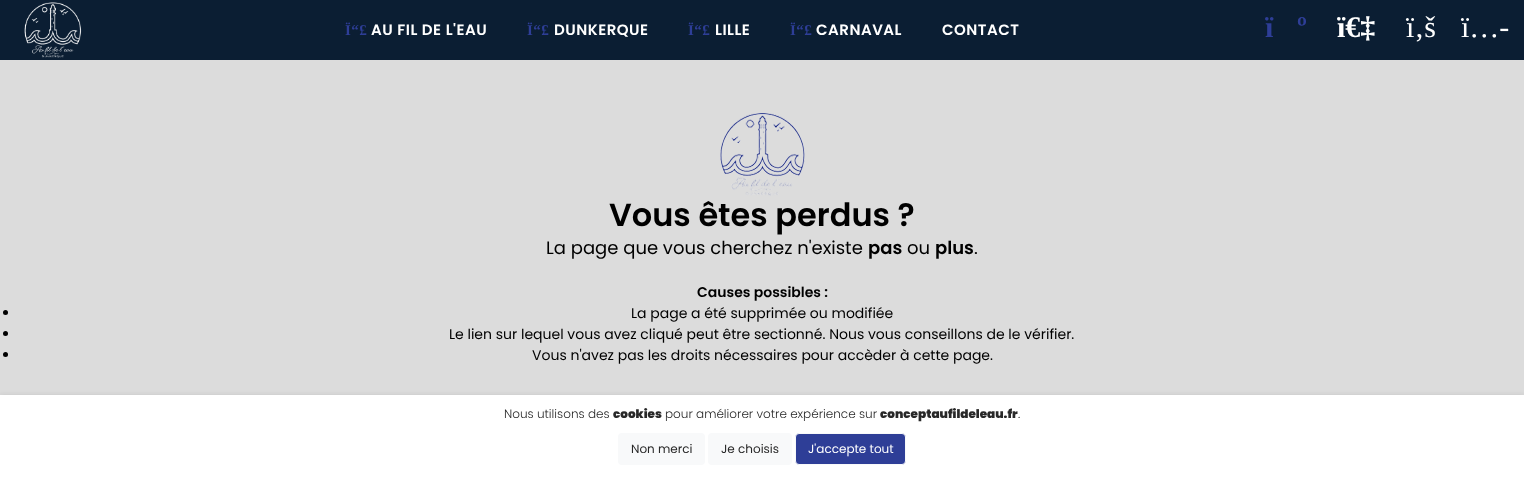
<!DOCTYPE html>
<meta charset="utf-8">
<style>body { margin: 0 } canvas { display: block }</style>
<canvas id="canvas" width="1524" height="495"></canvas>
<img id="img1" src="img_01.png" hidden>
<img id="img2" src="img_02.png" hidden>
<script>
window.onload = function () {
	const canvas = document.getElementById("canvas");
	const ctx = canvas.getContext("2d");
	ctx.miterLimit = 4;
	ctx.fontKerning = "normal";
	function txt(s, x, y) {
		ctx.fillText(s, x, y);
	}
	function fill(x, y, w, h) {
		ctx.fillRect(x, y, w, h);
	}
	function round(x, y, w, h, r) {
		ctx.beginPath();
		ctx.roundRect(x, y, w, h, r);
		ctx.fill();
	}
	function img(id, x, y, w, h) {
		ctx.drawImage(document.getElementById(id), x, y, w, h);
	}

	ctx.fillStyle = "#DCDCDC";
	fill(0, 0, 1524, 495);
	ctx.fillStyle = "#0B1E33";
	fill(0, 0, 1524, 60);
	img("img1", 24, 2, 58, 56);
	img("img2", 720, 113, 85, 83);
	ctx.fillStyle = "#000000";
	ctx.beginPath();
	ctx.arc(5.5, 312.5, 2.5, 0, Math.PI * 2);
	ctx.fill();
	ctx.beginPath();
	ctx.arc(5.5, 333.5, 2.5, 0, Math.PI * 2);
	ctx.fill();
	ctx.beginPath();
	ctx.arc(5.5, 354.5, 2.5, 0, Math.PI * 2);
	ctx.fill();
	ctx.fillStyle = "rgba(26, 26, 26, 0.08)";
	ctx.filter = "blur(2px)";
	ctx.beginPath();
	ctx.rect(0, 394, 1524, 100);
	ctx.fill();
	ctx.filter = "none";
	ctx.fillStyle = "#FFFFFF";
	fill(0, 395, 1524, 100);
	ctx.fillStyle = "#F8F9FA";
	round(618, 433, 87, 32, 4);
	round(708, 433, 84, 32, 4);
	ctx.fillStyle = "#2E3E97";
	ctx.beginPath();
	ctx.roundRect(795.5, 433.5, 110, 31, 3.5);
	ctx.fill();
	ctx.strokeStyle = "#F8F9FA";
	ctx.stroke();
	ctx.letterSpacing = "0.5px";
	ctx.font = "bold 15px Liberation Serif";
	txt("Ï“£", 345, 35);
	ctx.font = "600 15px Poppins";
	ctx.fillStyle = "#FFFFFF";
	txt("AU FIL DE L'EAU", 371, 35);
	ctx.font = "bold 15px Liberation Serif";
	ctx.fillStyle = "#2E3E97";
	txt("Ï“£", 527, 35);
	ctx.font = "600 15px Poppins";
	ctx.fillStyle = "#FFFFFF";
	txt("DUNKERQUE", 554, 35);
	ctx.font = "bold 15px Liberation Serif";
	ctx.fillStyle = "#2E3E97";
	txt("Ï“£", 688, 35);
	ctx.font = "600 15px Poppins";
	ctx.fillStyle = "#FFFFFF";
	txt("LILLE", 715, 35);
	ctx.font = "bold 15px Liberation Serif";
	ctx.fillStyle = "#2E3E97";
	txt("Ï“£", 790, 35);
	ctx.font = "600 15px Poppins";
	ctx.fillStyle = "#FFFFFF";
	txt("CARNAVAL", 816, 35);
	txt("CONTACT", 942, 35);
	ctx.letterSpacing = "0px";
	ctx.font = "bold 30px Liberation Serif";
	ctx.fillStyle = "#2E3E97";
	txt("ï", 1265, 37);
	txt("º", 1297, 37);
	ctx.fillStyle = "#FFFFFF";
	txt("ï€‡", 1337, 37);
	ctx.font = "30px Liberation Serif";
	txt("ï‚š", 1406, 37);
	txt("ï…-", 1461, 37);
	ctx.font = "600 32px Poppins";
	ctx.fillStyle = "#000000";
	txt("Vous êtes perdus ?", 609, 226);
	ctx.font = "18px Poppins";
	txt("La page que vous cherchez n'existe", 546, 254);
	ctx.font = "600 18px Poppins";
	txt("pas", 868, 254);
	ctx.font = "18px Poppins";
	txt("ou", 907, 254);
	ctx.font = "600 18px Poppins";
	txt("plus", 935, 254);
	ctx.font = "18px Poppins";
	txt(".", 974, 254);
	ctx.font = "600 14px Poppins";
	txt("Causes possibles :", 697, 297);
	ctx.font = "14px Poppins";
	txt("La page a été supprimée ou modifiée", 631, 318);
	txt("Le lien sur lequel vous avez cliqué peut être sectionné. Nous vous conseillons de le vérifier.", 449, 339);
	txt("Vous n'avez pas les droits nécessaires pour accèder à cette page.", 532, 360);
	ctx.font = "300 12px Poppins";
	ctx.fillStyle = "#282828";
	txt("Nous utilisons des", 504, 418);
	ctx.font = "900 12px Poppins";
	txt("cookies", 613, 418);
	ctx.font = "300 12px Poppins";
	txt("pour améliorer votre expérience sur", 665, 418);
	ctx.font = "900 12px Poppins";
	txt("conceptaufildeleau.fr", 880, 418);
	ctx.font = "300 12px Poppins";
	txt(".", 1018, 418);
	ctx.font = "12px Poppins";
	txt("Non merci", 631, 453);
	txt("Je choisis", 721, 453);
	ctx.fillStyle = "#FFFFFF";
	txt("J'accepte tout", 808, 453);
};
</script>
